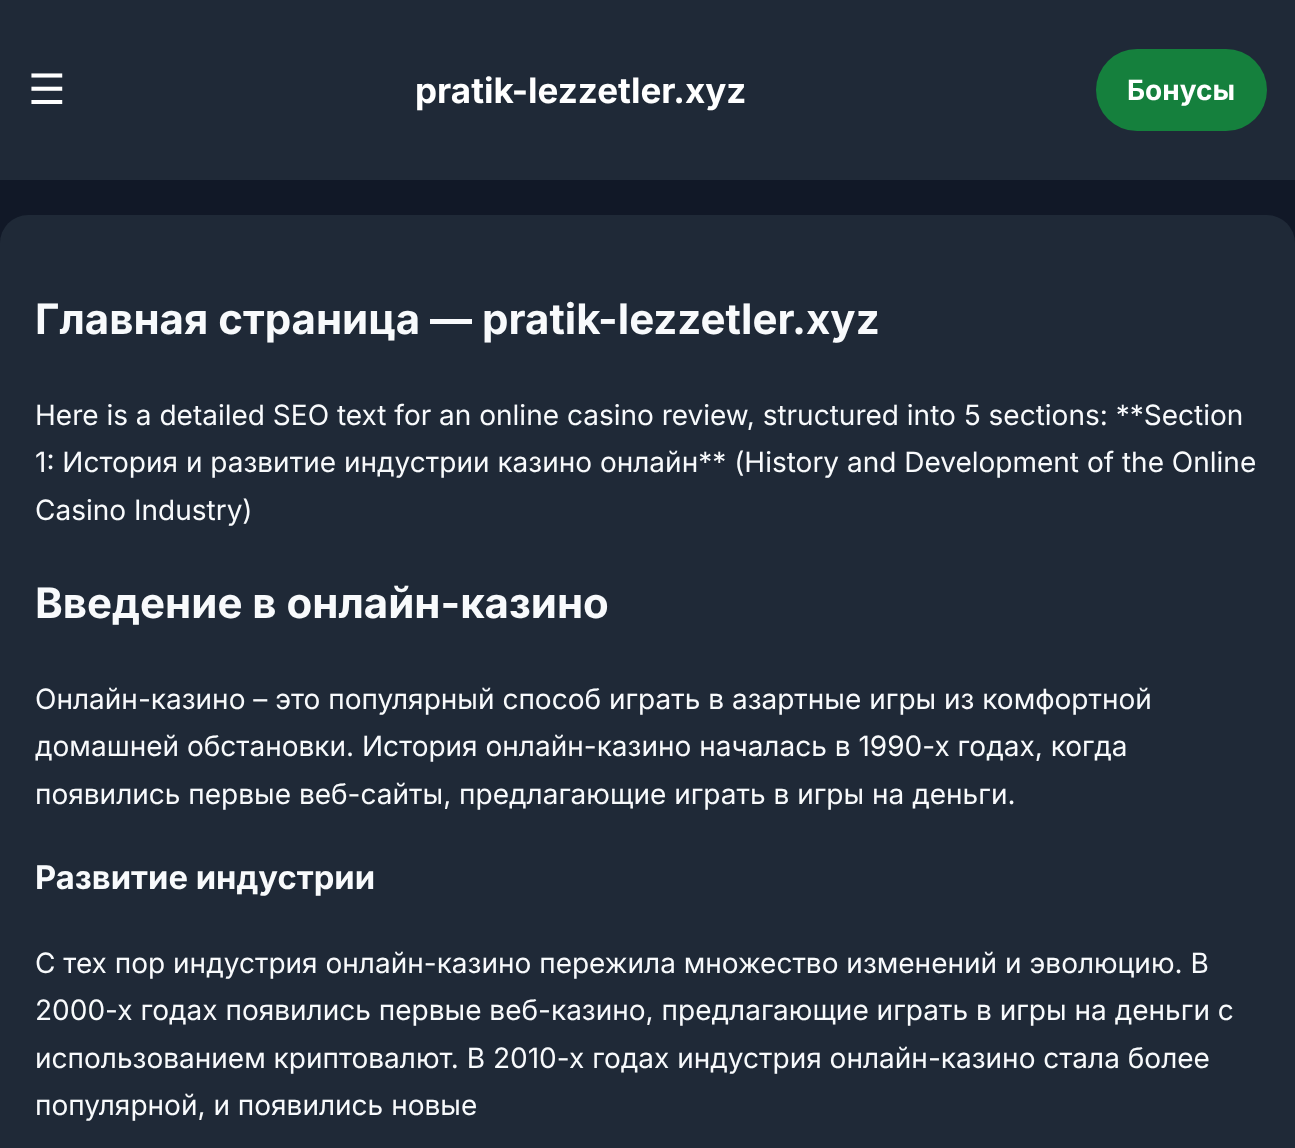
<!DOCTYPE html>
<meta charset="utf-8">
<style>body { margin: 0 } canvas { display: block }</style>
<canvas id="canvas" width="1295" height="1148"></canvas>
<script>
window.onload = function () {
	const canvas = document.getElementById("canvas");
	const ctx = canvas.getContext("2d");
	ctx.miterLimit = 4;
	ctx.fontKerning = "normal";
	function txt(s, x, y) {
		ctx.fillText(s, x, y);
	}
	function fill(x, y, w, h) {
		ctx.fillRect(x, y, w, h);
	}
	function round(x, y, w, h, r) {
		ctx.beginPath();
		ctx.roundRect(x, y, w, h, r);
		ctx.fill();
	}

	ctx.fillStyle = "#111827";
	fill(0, 0, 1295, 1148);
	ctx.fillStyle = "#1F2937";
	fill(0, 0, 1295, 180);
	ctx.fillStyle = "#15803D";
	round(1096, 49, 171, 82, 41);
	ctx.fillStyle = "#1F2937";
	round(0, 215, 1295, 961, 28);
	ctx.font = "42px DejaVu Sans";
	ctx.fillStyle = "#FFFFFF";
	txt("☰", 28, 104);
	ctx.font = "bold 35px Inter";
	txt("pratik-lezzetler.xyz", 415, 103);
	ctx.font = "bold 28px Inter";
	txt("Бонусы", 1127, 100);
	ctx.font = "bold 42px Inter";
	ctx.fillStyle = "#F8FAFC";
	txt("Главная страница — pratik-lezzetler.xyz", 35, 334);
	ctx.font = "28px Inter";
	txt("Here is a detailed SEO text for an online casino review, structured into 5 sections: **Section", 35, 425);
	txt("1: История и развитие индустрии казино онлайн** (History and Development of the Online", 35, 472);
	txt("Casino Industry)", 35, 520);
	ctx.font = "bold 42px Inter";
	txt("Введение в онлайн-казино", 35, 618);
	ctx.font = "28px Inter";
	txt("Онлайн-казино – это популярный способ играть в азартные игры из комфортной", 35, 709);
	txt("домашней обстановки. История онлайн-казино началась в 1990-х годах, когда", 35, 756);
	txt("появились первые веб-сайты, предлагающие играть в игры на деньги.", 35, 804);
	ctx.font = "bold 32.75px Inter";
	txt("Развитие индустрии", 35, 889);
	ctx.font = "28px Inter";
	txt("С тех пор индустрия онлайн-казино пережила множество изменений и эволюцию. В", 35, 973);
	txt("2000-х годах появились первые веб-казино, предлагающие играть в игры на деньги с", 35, 1020);
	txt("использованием криптовалют. В 2010-х годах индустрия онлайн-казино стала более", 35, 1068);
	txt("популярной, и появились новые", 35, 1115);
};
</script>
